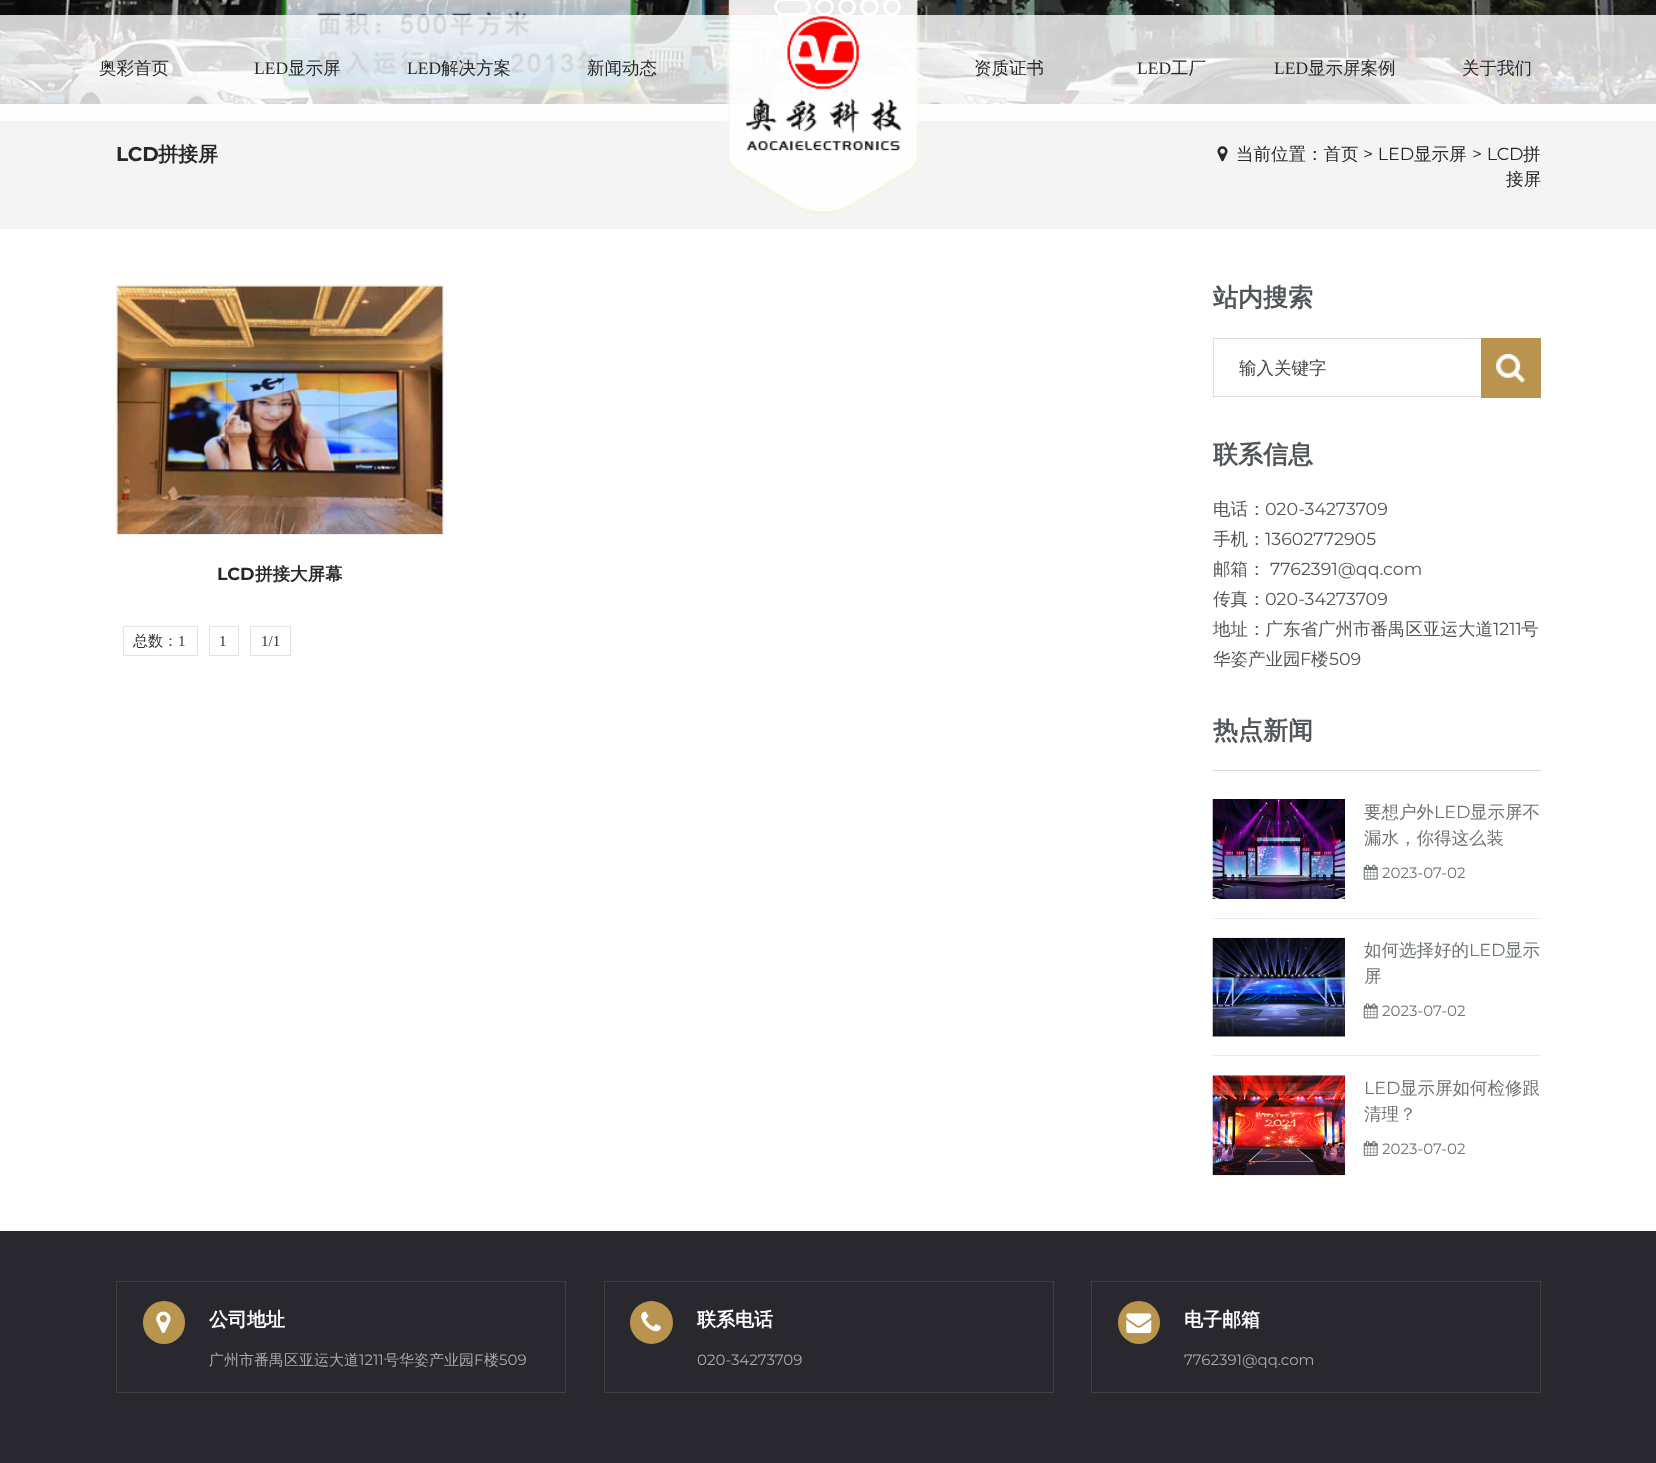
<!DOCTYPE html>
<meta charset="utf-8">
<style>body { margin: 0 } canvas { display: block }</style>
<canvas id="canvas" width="1656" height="1463"></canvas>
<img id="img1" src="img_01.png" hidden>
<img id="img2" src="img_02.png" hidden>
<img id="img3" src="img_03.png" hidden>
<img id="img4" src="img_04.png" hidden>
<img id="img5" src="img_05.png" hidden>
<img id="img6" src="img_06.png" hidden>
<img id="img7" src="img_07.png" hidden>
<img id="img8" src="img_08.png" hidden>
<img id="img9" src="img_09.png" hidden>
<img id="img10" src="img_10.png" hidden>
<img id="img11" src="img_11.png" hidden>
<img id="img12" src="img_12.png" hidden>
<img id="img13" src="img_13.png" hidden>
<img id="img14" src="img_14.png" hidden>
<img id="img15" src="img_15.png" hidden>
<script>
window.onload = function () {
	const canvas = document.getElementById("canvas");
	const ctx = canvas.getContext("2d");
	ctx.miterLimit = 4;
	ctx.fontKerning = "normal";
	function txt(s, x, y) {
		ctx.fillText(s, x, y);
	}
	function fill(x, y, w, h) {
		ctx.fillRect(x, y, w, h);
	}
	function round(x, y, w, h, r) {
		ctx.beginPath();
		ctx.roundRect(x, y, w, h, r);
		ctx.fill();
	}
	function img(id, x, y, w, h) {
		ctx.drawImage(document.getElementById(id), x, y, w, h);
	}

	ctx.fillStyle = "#FFFFFF";
	fill(0, 0, 1656, 1463);
	img("img1", 0, 0, 1656, 104);
	ctx.beginPath();
	ctx.roundRect(775.5, -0.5, 34, 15, 7.5);
	ctx.strokeStyle = "#FFFFFF";
	ctx.lineWidth = 3;
	ctx.stroke();
	ctx.beginPath();
	ctx.roundRect(816.5, -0.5, 16, 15, 7.5);
	ctx.stroke();
	ctx.beginPath();
	ctx.arc(847, 7, 7.5, 0, Math.PI * 2);
	ctx.stroke();
	ctx.beginPath();
	ctx.roundRect(861.5, -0.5, 16, 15, 7.5);
	ctx.stroke();
	ctx.beginPath();
	ctx.arc(892, 7, 7.5, 0, Math.PI * 2);
	ctx.stroke();
	ctx.fillStyle = "#F4F4F4";
	fill(0, 104, 1656, 125);
	ctx.fillStyle = "rgba(255, 255, 255, 0.8)";
	fill(0, 15, 1656, 106);
	img("img2", 726, 0, 194, 215);
	img("img3", 746, 16, 156, 135);
	img("img4", 1217, 146, 11, 16);
	ctx.strokeStyle = "#EDEDED";
	ctx.lineWidth = 1;
	ctx.strokeRect(116.5, 285.5, 327, 249);
	img("img5", 117, 286, 326, 248);
	ctx.strokeStyle = "#E3E3E3";
	ctx.strokeRect(123.5, 626.5, 74, 29);
	ctx.strokeRect(209.5, 626.5, 29, 29);
	ctx.strokeRect(250.5, 626.5, 40, 29);
	ctx.fillStyle = "#DDDDDD";
	fill(1213, 338, 268, 1);
	fill(1213, 396, 268, 1);
	fill(1213, 338, 1, 60);
	ctx.fillStyle = "#B9944E";
	fill(1481, 338, 60, 60);
	img("img6", 1496, 354, 29, 29);
	ctx.fillStyle = "#D3DAE0";
	fill(1213, 770, 328, 1);
	ctx.fillStyle = "#E8E9EF";
	fill(1213, 918, 328, 1);
	img("img7", 1212, 799, 133, 100);
	img("img8", 1363, 864, 15, 16);
	fill(1213, 1055, 328, 1);
	img("img9", 1212, 937, 133, 100);
	img("img10", 1363, 1003, 15, 16);
	img("img11", 1212, 1075, 133, 101);
	img("img12", 1363, 1140, 15, 16);
	ctx.fillStyle = "#29282E";
	fill(0, 1231, 1656, 232);
	ctx.strokeStyle = "#3E3E43";
	ctx.strokeRect(116.5, 1281.5, 449, 111);
	ctx.fillStyle = "#B9944E";
	round(143, 1301, 42, 43, 21);
	img("img13", 156, 1311, 15, 22);
	ctx.strokeRect(604.5, 1281.5, 449, 111);
	ctx.beginPath();
	ctx.arc(651.5, 1322.5, 21.5, 0, Math.PI * 2);
	ctx.fill();
	img("img14", 641, 1311, 20, 21);
	ctx.strokeRect(1091.5, 1281.5, 449, 111);
	round(1118, 1301, 42, 43, 21);
	img("img15", 1126, 1313, 26, 21);
	ctx.font = "500 17.5px WenQuanYi Zen Hei";
	ctx.fillStyle = "#282828";
	txt("奥彩首页", 99, 74);
	ctx.font = "17.5px Liberation Serif";
	txt("LED", 254, 74);
	ctx.font = "500 17.5px WenQuanYi Zen Hei";
	txt("显示屏", 288, 74);
	ctx.font = "17.5px Liberation Serif";
	txt("LED", 407, 74);
	ctx.font = "500 17.5px WenQuanYi Zen Hei";
	txt("解决方案", 441, 74);
	txt("新闻动态", 587, 74);
	txt("资质证书", 974, 74);
	ctx.font = "17.5px Liberation Serif";
	txt("LED", 1137, 74);
	ctx.font = "500 17.5px WenQuanYi Zen Hei";
	txt("工厂", 1171, 74);
	ctx.font = "17.5px Liberation Serif";
	txt("LED", 1274, 74);
	ctx.font = "500 17.5px WenQuanYi Zen Hei";
	txt("显示屏案例", 1308, 74);
	txt("关于我们", 1462, 74);
	ctx.font = "bold 20px Montserrat";
	txt("LCD", 116, 161);
	ctx.font = "bold 20px WenQuanYi Zen Hei";
	txt("拼接屏", 158, 161);
	ctx.font = "500 17.5px WenQuanYi Zen Hei";
	txt("当前位置：首页", 1236, 160);
	ctx.font = "17.5px Montserrat";
	txt("> LED", 1363, 160);
	ctx.font = "500 17.5px WenQuanYi Zen Hei";
	txt("显示屏", 1414, 160);
	ctx.font = "17.5px Montserrat";
	txt("> LCD", 1472, 160);
	ctx.font = "500 17.5px WenQuanYi Zen Hei";
	txt("拼", 1523, 160);
	txt("接屏", 1506, 185);
	ctx.font = "bold 17.5px Montserrat";
	txt("LCD", 217, 580);
	ctx.font = "bold 17.5px WenQuanYi Zen Hei";
	txt("拼接大屏幕", 255, 580);
	ctx.font = "500 15px WenQuanYi Zen Hei";
	ctx.fillStyle = "#333333";
	txt("总数：", 133, 646);
	ctx.font = "15px Liberation Serif";
	txt("1", 178, 646);
	txt("1", 219, 646);
	txt("1/1", 261, 646);
	ctx.font = "bold 25px WenQuanYi Zen Hei";
	ctx.fillStyle = "#525659";
	txt("站内搜索", 1213, 306);
	ctx.font = "500 17.5px WenQuanYi Zen Hei";
	ctx.fillStyle = "#444444";
	txt("输入关键字", 1239, 374);
	ctx.font = "bold 25px WenQuanYi Zen Hei";
	ctx.fillStyle = "#525659";
	txt("联系信息", 1213, 463);
	ctx.font = "500 17.5px WenQuanYi Zen Hei";
	txt("电话：", 1213, 515);
	ctx.font = "17.5px Montserrat";
	txt("020-34273709", 1265, 515);
	ctx.font = "500 17.5px WenQuanYi Zen Hei";
	txt("手机：", 1213, 545);
	ctx.font = "17.5px Montserrat";
	txt("13602772905", 1265, 545);
	ctx.font = "500 17.5px WenQuanYi Zen Hei";
	txt("邮箱：", 1213, 575);
	ctx.font = "17.5px Montserrat";
	txt("7762391@qq.com", 1270, 575);
	ctx.font = "500 17.5px WenQuanYi Zen Hei";
	txt("传真：", 1213, 605);
	ctx.font = "17.5px Montserrat";
	txt("020-34273709", 1265, 605);
	ctx.font = "500 17.5px WenQuanYi Zen Hei";
	txt("地址：广东省广州市番禺区亚运大道", 1213, 635);
	ctx.font = "17.5px Montserrat";
	txt("1211", 1493, 635);
	ctx.font = "500 17.5px WenQuanYi Zen Hei";
	txt("号", 1521, 635);
	txt("华姿产业园", 1213, 665);
	ctx.font = "17.5px Montserrat";
	txt("F", 1300, 665);
	ctx.font = "500 17.5px WenQuanYi Zen Hei";
	txt("楼", 1311, 665);
	ctx.font = "17.5px Montserrat";
	txt("509", 1329, 665);
	ctx.font = "bold 25px WenQuanYi Zen Hei";
	txt("热点新闻", 1213, 739);
	ctx.font = "500 17.5px WenQuanYi Zen Hei";
	ctx.fillStyle = "#6E7375";
	txt("要想户外", 1364, 818);
	ctx.font = "17.5px Montserrat";
	txt("LED", 1434, 818);
	ctx.font = "500 17.5px WenQuanYi Zen Hei";
	txt("显示屏不", 1470, 818);
	txt("漏水，你得这么装", 1364, 844);
	ctx.font = "15px Montserrat";
	txt("2023-07-02", 1382, 878);
	ctx.font = "500 17.5px WenQuanYi Zen Hei";
	txt("如何选择好的", 1364, 956);
	ctx.font = "17.5px Montserrat";
	txt("LED", 1469, 956);
	ctx.font = "500 17.5px WenQuanYi Zen Hei";
	txt("显示", 1505, 956);
	txt("屏", 1364, 982);
	ctx.font = "15px Montserrat";
	txt("2023-07-02", 1382, 1016);
	ctx.font = "17.5px Montserrat";
	txt("LED", 1364, 1094);
	ctx.font = "500 17.5px WenQuanYi Zen Hei";
	txt("显示屏如何检修跟", 1400, 1094);
	txt("清理？", 1364, 1120);
	ctx.font = "15px Montserrat";
	txt("2023-07-02", 1382, 1154);
	ctx.font = "bold 19px WenQuanYi Zen Hei";
	ctx.fillStyle = "#FFFFFF";
	txt("公司地址", 209, 1326);
	ctx.font = "500 15px WenQuanYi Zen Hei";
	ctx.fillStyle = "#A9A9AB";
	txt("广州市番禺区亚运大道", 209, 1365);
	ctx.font = "15px Montserrat";
	txt("1211", 359, 1365);
	ctx.font = "500 15px WenQuanYi Zen Hei";
	txt("号华姿产业园", 384, 1365);
	ctx.font = "15px Montserrat";
	txt("F", 474, 1365);
	ctx.font = "500 15px WenQuanYi Zen Hei";
	txt("楼", 484, 1365);
	ctx.font = "15px Montserrat";
	txt("509", 499, 1365);
	ctx.font = "bold 19px WenQuanYi Zen Hei";
	ctx.fillStyle = "#FFFFFF";
	txt("联系电话", 697, 1326);
	ctx.font = "15px Montserrat";
	ctx.fillStyle = "#A9A9AB";
	txt("020-34273709", 697, 1365);
	ctx.font = "bold 19px WenQuanYi Zen Hei";
	ctx.fillStyle = "#FFFFFF";
	txt("电子邮箱", 1184, 1326);
	ctx.font = "15px Montserrat";
	ctx.fillStyle = "#A9A9AB";
	txt("7762391@qq.com", 1184, 1365);
};
</script>
